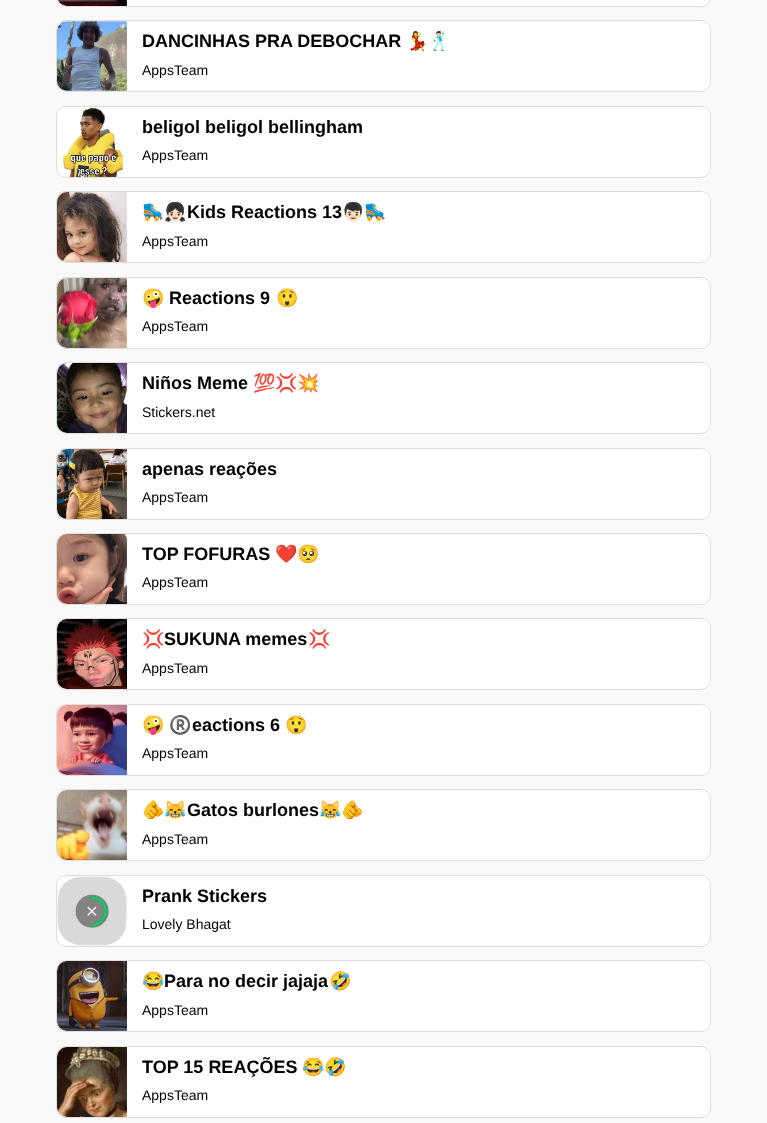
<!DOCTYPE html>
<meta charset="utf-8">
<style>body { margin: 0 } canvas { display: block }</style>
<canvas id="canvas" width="767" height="1123"></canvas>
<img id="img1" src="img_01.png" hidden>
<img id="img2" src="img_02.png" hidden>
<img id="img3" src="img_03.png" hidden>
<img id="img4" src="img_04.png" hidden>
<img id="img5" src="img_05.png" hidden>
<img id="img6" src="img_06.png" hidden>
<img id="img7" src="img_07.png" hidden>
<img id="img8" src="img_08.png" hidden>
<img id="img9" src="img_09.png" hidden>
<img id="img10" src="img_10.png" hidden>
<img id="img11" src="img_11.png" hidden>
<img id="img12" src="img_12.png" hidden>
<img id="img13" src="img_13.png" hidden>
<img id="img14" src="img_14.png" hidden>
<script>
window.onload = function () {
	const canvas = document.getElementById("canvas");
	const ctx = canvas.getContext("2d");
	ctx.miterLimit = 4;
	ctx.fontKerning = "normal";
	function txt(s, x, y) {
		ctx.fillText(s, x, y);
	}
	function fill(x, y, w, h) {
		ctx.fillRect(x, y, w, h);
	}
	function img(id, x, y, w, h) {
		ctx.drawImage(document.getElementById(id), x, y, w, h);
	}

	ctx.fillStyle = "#F9F9F9";
	fill(0, 0, 767, 1123);
	ctx.fillStyle = "#FFFFFF";
	ctx.beginPath();
	ctx.roundRect(56.5, -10.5, 654, 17, 9.5);
	ctx.fill();
	ctx.strokeStyle = "#DDDDDD";
	ctx.stroke();
	ctx.beginPath();
	ctx.moveTo(67, -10);
	ctx.lineTo(127, -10);
	ctx.lineTo(127, 6);
	ctx.lineTo(67, 6);
	ctx.bezierCurveTo(61.5, 6, 57, 1.5, 57, -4);
	ctx.lineTo(57, 0);
	ctx.bezierCurveTo(57, -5.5, 61.5, -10, 67, -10);
	ctx.closePath();
	ctx.fill();
	img("img1", 57, 0, 70, 6);
	ctx.beginPath();
	ctx.roundRect(56.5, 20.5, 654, 71, 9.5);
	ctx.fill();
	ctx.stroke();
	ctx.beginPath();
	ctx.roundRect(67, 21, 643, 37, [0, 9, 0, 0]);
	ctx.fill();
	ctx.beginPath();
	ctx.roundRect(57, 21, 70, 70, [10, 0, 0, 10]);
	ctx.fill();
	img("img2", 57, 21, 70, 70);
	ctx.beginPath();
	ctx.roundRect(56.5, 106.5, 654, 71, 9.5);
	ctx.fill();
	ctx.stroke();
	ctx.beginPath();
	ctx.roundRect(67, 107, 643, 36, [0, 9, 0, 0]);
	ctx.fill();
	ctx.beginPath();
	ctx.roundRect(57, 107, 70, 70, [10, 0, 0, 10]);
	ctx.fill();
	img("img3", 63, 107, 60, 70);
	ctx.beginPath();
	ctx.roundRect(56.5, 191.5, 654, 71, 9.5);
	ctx.fill();
	ctx.stroke();
	ctx.beginPath();
	ctx.roundRect(67, 192, 643, 37, [0, 9, 0, 0]);
	ctx.fill();
	ctx.beginPath();
	ctx.roundRect(57, 192, 70, 70, [10, 0, 0, 10]);
	ctx.fill();
	img("img4", 57, 192, 70, 70);
	ctx.beginPath();
	ctx.roundRect(56.5, 277.5, 654, 71, 9.5);
	ctx.fill();
	ctx.stroke();
	ctx.beginPath();
	ctx.roundRect(67, 278, 643, 36, [0, 9, 0, 0]);
	ctx.fill();
	ctx.beginPath();
	ctx.roundRect(57, 278, 70, 70, [10, 0, 0, 10]);
	ctx.fill();
	img("img5", 57, 278, 70, 70);
	ctx.beginPath();
	ctx.roundRect(56.5, 362.5, 654, 71, 9.5);
	ctx.fill();
	ctx.stroke();
	ctx.beginPath();
	ctx.roundRect(67, 363, 643, 37, [0, 9, 0, 0]);
	ctx.fill();
	ctx.beginPath();
	ctx.roundRect(57, 363, 70, 70, [10, 0, 0, 10]);
	ctx.fill();
	img("img6", 57, 363, 70, 70);
	ctx.beginPath();
	ctx.roundRect(56.5, 448.5, 654, 71, 9.5);
	ctx.fill();
	ctx.stroke();
	ctx.beginPath();
	ctx.roundRect(67, 449, 643, 36, [0, 9, 0, 0]);
	ctx.fill();
	ctx.beginPath();
	ctx.roundRect(57, 449, 70, 70, [10, 0, 0, 10]);
	ctx.fill();
	img("img7", 57, 449, 70, 70);
	ctx.beginPath();
	ctx.roundRect(56.5, 533.5, 654, 71, 9.5);
	ctx.fill();
	ctx.stroke();
	ctx.beginPath();
	ctx.roundRect(67, 534, 643, 36, [0, 9, 0, 0]);
	ctx.fill();
	ctx.beginPath();
	ctx.roundRect(57, 534, 70, 70, [10, 0, 0, 10]);
	ctx.fill();
	img("img8", 57, 534, 70, 70);
	ctx.beginPath();
	ctx.roundRect(56.5, 618.5, 654, 71, 9.5);
	ctx.fill();
	ctx.stroke();
	ctx.beginPath();
	ctx.roundRect(67, 619, 643, 37, [0, 9, 0, 0]);
	ctx.fill();
	ctx.beginPath();
	ctx.roundRect(57, 619, 70, 70, [10, 0, 0, 10]);
	ctx.fill();
	img("img9", 57, 619, 70, 70);
	ctx.beginPath();
	ctx.roundRect(56.5, 704.5, 654, 71, 9.5);
	ctx.fill();
	ctx.stroke();
	ctx.beginPath();
	ctx.roundRect(67, 705, 643, 36, [0, 9, 0, 0]);
	ctx.fill();
	ctx.beginPath();
	ctx.roundRect(57, 705, 70, 70, [10, 0, 0, 10]);
	ctx.fill();
	img("img10", 57, 705, 70, 70);
	ctx.beginPath();
	ctx.roundRect(56.5, 789.5, 654, 71, 9.5);
	ctx.fill();
	ctx.stroke();
	ctx.beginPath();
	ctx.roundRect(67, 790, 643, 37, [0, 9, 0, 0]);
	ctx.fill();
	ctx.beginPath();
	ctx.roundRect(57, 790, 70, 70, [10, 0, 0, 10]);
	ctx.fill();
	img("img11", 57, 790, 70, 70);
	ctx.beginPath();
	ctx.roundRect(56.5, 875.5, 654, 71, 9.5);
	ctx.fill();
	ctx.stroke();
	ctx.beginPath();
	ctx.roundRect(67, 876, 643, 36, [0, 9, 0, 0]);
	ctx.fill();
	ctx.beginPath();
	ctx.roundRect(57, 876, 70, 70, [10, 0, 0, 10]);
	ctx.fill();
	img("img12", 57, 876, 70, 70);
	ctx.beginPath();
	ctx.roundRect(56.5, 960.5, 654, 71, 9.5);
	ctx.fill();
	ctx.stroke();
	ctx.beginPath();
	ctx.roundRect(67, 961, 643, 37, [0, 9, 0, 0]);
	ctx.fill();
	ctx.beginPath();
	ctx.roundRect(57, 961, 70, 70, [10, 0, 0, 10]);
	ctx.fill();
	img("img13", 57, 961, 70, 70);
	ctx.beginPath();
	ctx.roundRect(56.5, 1046.5, 654, 71, 9.5);
	ctx.fill();
	ctx.stroke();
	ctx.beginPath();
	ctx.roundRect(67, 1047, 643, 36, [0, 9, 0, 0]);
	ctx.fill();
	ctx.beginPath();
	ctx.roundRect(57, 1047, 70, 70, [10, 0, 0, 10]);
	ctx.fill();
	img("img14", 57, 1047, 70, 70);
	ctx.font = "bold 18px Liberation Sans";
	ctx.fillStyle = "#000000";
	txt("DANCINHAS PRA DEBOCHAR", 142, 47);
	ctx.font = "bold 18px Noto Color Emoji";
	txt("💃🕺🏻", 406, 47);
	ctx.font = "14px Liberation Sans";
	txt("AppsTeam", 142, 75);
	ctx.font = "bold 18px Liberation Sans";
	txt("beligol beligol bellingham", 142, 133);
	ctx.font = "14px Liberation Sans";
	txt("AppsTeam", 142, 160);
	ctx.font = "bold 18px Noto Color Emoji";
	txt("🛼👧🏻", 142, 218);
	ctx.font = "bold 18px Liberation Sans";
	txt("Kids Reactions 13", 187, 218);
	ctx.font = "bold 18px Noto Color Emoji";
	txt("👦🏻🛼", 342, 218);
	ctx.font = "14px Liberation Sans";
	txt("AppsTeam", 142, 246);
	ctx.font = "bold 18px Noto Color Emoji";
	txt("🤪", 142, 304);
	ctx.font = "bold 18px Liberation Sans";
	txt("Reactions 9", 169, 304);
	ctx.font = "bold 18px Noto Color Emoji";
	txt("😲", 276, 304);
	ctx.font = "14px Liberation Sans";
	txt("AppsTeam", 142, 331);
	ctx.font = "bold 18px Liberation Sans";
	txt("Niños Meme", 142, 389);
	ctx.font = "bold 18px Noto Color Emoji";
	txt("💯💢💥", 253, 389);
	ctx.font = "14px Liberation Sans";
	txt("Stickers.net", 142, 417);
	ctx.font = "bold 18px Liberation Sans";
	txt("apenas reações", 142, 475);
	ctx.font = "14px Liberation Sans";
	txt("AppsTeam", 142, 502);
	ctx.font = "bold 18px Liberation Sans";
	txt("TOP FOFURAS", 142, 560);
	ctx.font = "bold 18px Noto Color Emoji";
	txt("❤️🥺", 275, 560);
	ctx.font = "14px Liberation Sans";
	txt("AppsTeam", 142, 587);
	ctx.font = "bold 18px Noto Color Emoji";
	txt("💢", 142, 645);
	ctx.font = "bold 18px Liberation Sans";
	txt("SUKUNA memes", 164, 645);
	ctx.font = "bold 18px Noto Color Emoji";
	txt("💢", 308, 645);
	ctx.font = "14px Liberation Sans";
	txt("AppsTeam", 142, 673);
	ctx.font = "bold 18px Noto Color Emoji";
	txt("🤪", 142, 731);
	txt("®️", 169, 731);
	ctx.font = "bold 18px Liberation Sans";
	txt("eactions 6", 192, 731);
	ctx.font = "bold 18px Noto Color Emoji";
	txt("😲", 285, 731);
	ctx.font = "14px Liberation Sans";
	txt("AppsTeam", 142, 758);
	ctx.font = "bold 18px Noto Color Emoji";
	txt("🫵😹", 142, 816);
	ctx.font = "bold 18px Liberation Sans";
	txt("Gatos burlones", 187, 816);
	ctx.font = "bold 18px Noto Color Emoji";
	txt("😹🫵", 319, 816);
	ctx.font = "14px Liberation Sans";
	txt("AppsTeam", 142, 844);
	ctx.font = "bold 18px Liberation Sans";
	txt("Prank Stickers", 142, 902);
	ctx.font = "14px Liberation Sans";
	txt("Lovely Bhagat", 142, 929);
	ctx.font = "bold 18px Noto Color Emoji";
	txt("😂", 142, 987);
	ctx.font = "bold 18px Liberation Sans";
	txt("Para no decir jajaja", 164, 987);
	ctx.font = "bold 18px Noto Color Emoji";
	txt("🤣", 329, 987);
	ctx.font = "14px Liberation Sans";
	txt("AppsTeam", 142, 1015);
	ctx.font = "bold 18px Liberation Sans";
	txt("TOP 15 REAÇÕES", 142, 1073);
	ctx.font = "bold 18px Noto Color Emoji";
	txt("😂🤣", 302, 1073);
	ctx.font = "14px Liberation Sans";
	txt("AppsTeam", 142, 1100);
};
</script>
